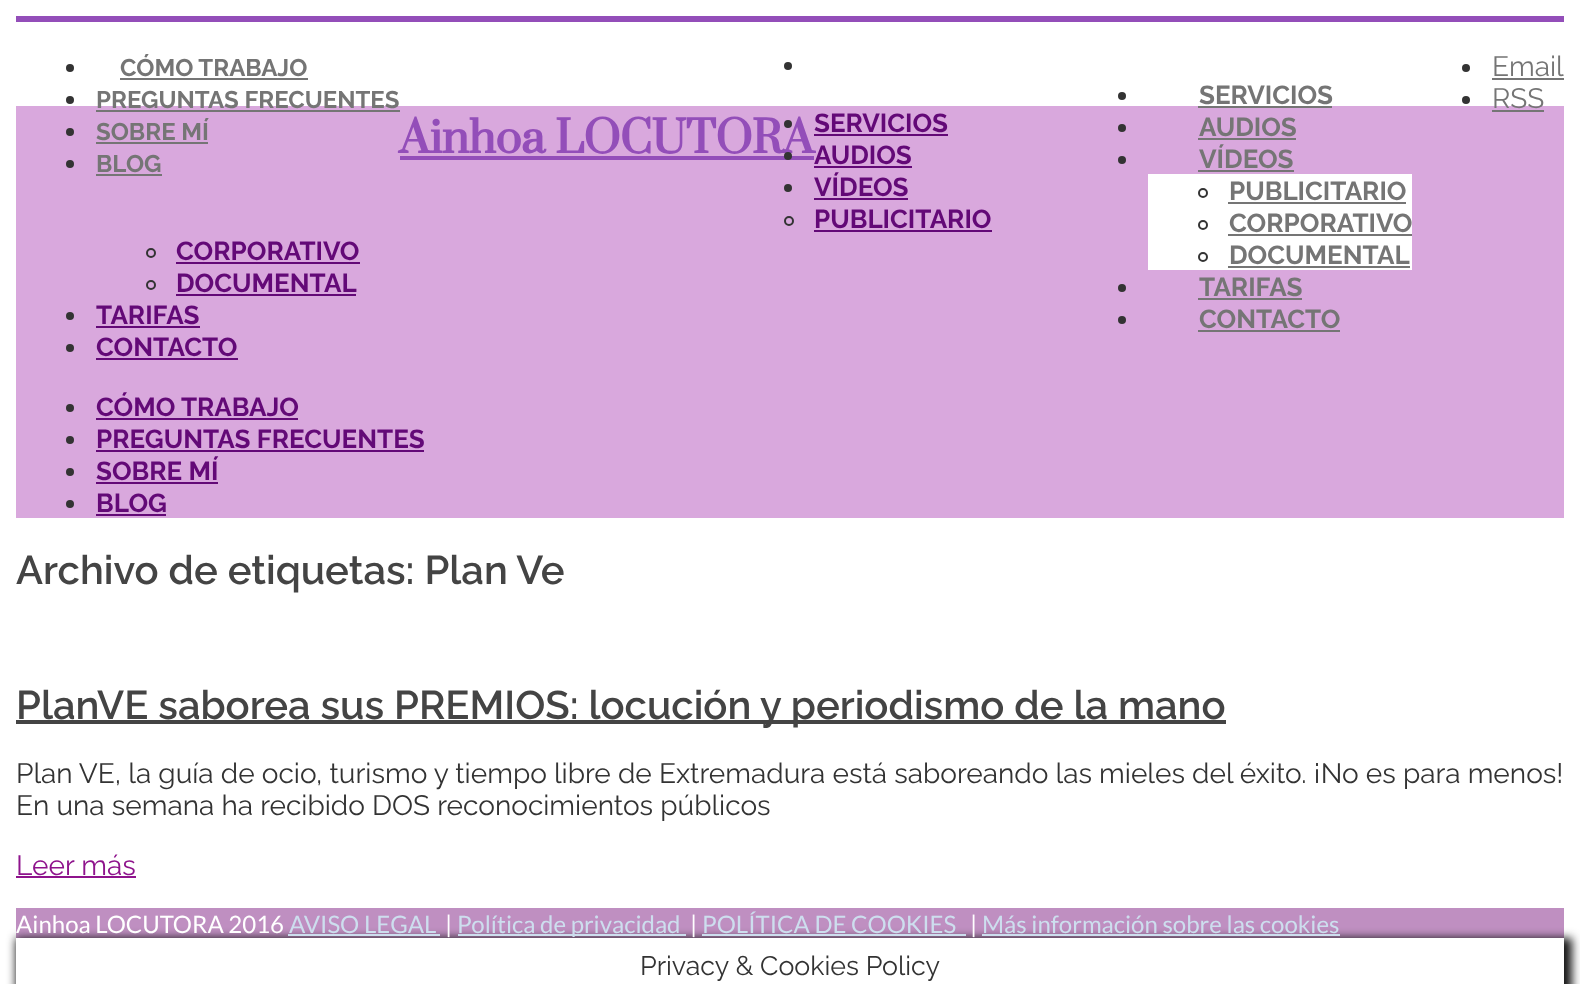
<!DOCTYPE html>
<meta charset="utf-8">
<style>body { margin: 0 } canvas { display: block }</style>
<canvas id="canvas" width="1580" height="984"></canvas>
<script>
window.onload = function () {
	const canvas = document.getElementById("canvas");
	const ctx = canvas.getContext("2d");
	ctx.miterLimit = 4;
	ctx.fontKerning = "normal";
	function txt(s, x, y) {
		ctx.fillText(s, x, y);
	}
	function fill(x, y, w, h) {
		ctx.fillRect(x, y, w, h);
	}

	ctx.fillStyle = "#FFFFFF";
	fill(0, 0, 1580, 984);
	ctx.fillStyle = "#934EB9";
	fill(16, 16, 1548, 6);
	ctx.fillStyle = "#333333";
	ctx.beginPath();
	ctx.arc(70, 68, 4, 0, Math.PI * 2);
	ctx.fill();
	ctx.fillStyle = "#757575";
	fill(120, 78, 188, 2);
	ctx.fillStyle = "#333333";
	ctx.beginPath();
	ctx.arc(70, 100, 4, 0, Math.PI * 2);
	ctx.fill();
	ctx.fillStyle = "#D9A8DD";
	fill(16, 106, 1548, 412);
	ctx.fillStyle = "#757575";
	fill(96, 110, 304, 2);
	ctx.fillStyle = "#333333";
	ctx.beginPath();
	ctx.arc(70, 132, 4, 0, Math.PI * 2);
	ctx.fill();
	ctx.fillStyle = "#757575";
	fill(96, 142, 112, 2);
	ctx.fillStyle = "#333333";
	ctx.beginPath();
	ctx.arc(70, 164, 4, 0, Math.PI * 2);
	ctx.fill();
	ctx.fillStyle = "#757575";
	fill(96, 174, 66, 2);
	ctx.fillStyle = "#333333";
	ctx.beginPath();
	ctx.arc(1466, 68, 4, 0, Math.PI * 2);
	ctx.fill();
	ctx.fillStyle = "#757575";
	fill(1492, 78, 72, 2);
	ctx.fillStyle = "#333333";
	ctx.beginPath();
	ctx.arc(1466, 100, 4, 0, Math.PI * 2);
	ctx.fill();
	ctx.fillStyle = "#757575";
	fill(1492, 110, 52, 2);
	ctx.fillStyle = "#333333";
	ctx.beginPath();
	ctx.arc(788, 66, 4, 0, Math.PI * 2);
	ctx.fill();
	ctx.fillStyle = "#934EB9";
	fill(400, 156, 414, 4);
	ctx.fillStyle = "#333333";
	ctx.beginPath();
	ctx.arc(1122, 96, 4, 0, Math.PI * 2);
	ctx.fill();
	ctx.fillStyle = "#757575";
	fill(1198, 106, 134, 2);
	ctx.fillStyle = "#333333";
	ctx.beginPath();
	ctx.arc(1122, 128, 4, 0, Math.PI * 2);
	ctx.fill();
	ctx.fillStyle = "#757575";
	fill(1198, 138, 98, 2);
	ctx.fillStyle = "#333333";
	ctx.beginPath();
	ctx.arc(1122, 160, 4, 0, Math.PI * 2);
	ctx.fill();
	ctx.fillStyle = "#757575";
	fill(1198, 170, 96, 2);
	ctx.fillStyle = "#FFFFFF";
	fill(1148, 174, 264, 96);
	ctx.beginPath();
	ctx.arc(1203, 193, 4, 0, Math.PI * 2);
	ctx.strokeStyle = "#333333";
	ctx.lineWidth = 2;
	ctx.stroke();
	ctx.fillStyle = "#757575";
	fill(1228, 202, 178, 2);
	ctx.beginPath();
	ctx.arc(1203, 225, 4, 0, Math.PI * 2);
	ctx.stroke();
	fill(1228, 234, 184, 2);
	ctx.beginPath();
	ctx.arc(1203, 257, 4, 0, Math.PI * 2);
	ctx.stroke();
	fill(1228, 266, 182, 2);
	ctx.fillStyle = "#333333";
	ctx.beginPath();
	ctx.arc(1122, 288, 4, 0, Math.PI * 2);
	ctx.fill();
	ctx.fillStyle = "#757575";
	fill(1198, 298, 104, 2);
	ctx.fillStyle = "#333333";
	ctx.beginPath();
	ctx.arc(1122, 320, 4, 0, Math.PI * 2);
	ctx.fill();
	ctx.fillStyle = "#757575";
	fill(1198, 330, 142, 2);
	ctx.fillStyle = "#630977";
	fill(814, 166, 98, 2);
	ctx.fillStyle = "#333333";
	ctx.beginPath();
	ctx.arc(788, 188, 4, 0, Math.PI * 2);
	ctx.fill();
	ctx.fillStyle = "#630977";
	fill(814, 198, 94, 2);
	ctx.beginPath();
	ctx.arc(789, 221, 4, 0, Math.PI * 2);
	ctx.stroke();
	fill(814, 230, 178, 2);
	ctx.beginPath();
	ctx.arc(151, 253, 4, 0, Math.PI * 2);
	ctx.stroke();
	fill(176, 262, 184, 2);
	ctx.beginPath();
	ctx.arc(151, 285, 4, 0, Math.PI * 2);
	ctx.stroke();
	fill(176, 294, 180, 2);
	ctx.fillStyle = "#333333";
	ctx.beginPath();
	ctx.arc(70, 316, 4, 0, Math.PI * 2);
	ctx.fill();
	ctx.fillStyle = "#630977";
	fill(96, 326, 104, 2);
	ctx.fillStyle = "#333333";
	ctx.beginPath();
	ctx.arc(70, 348, 4, 0, Math.PI * 2);
	ctx.fill();
	ctx.fillStyle = "#630977";
	fill(96, 358, 142, 2);
	ctx.fillStyle = "#333333";
	ctx.beginPath();
	ctx.arc(70, 408, 4, 0, Math.PI * 2);
	ctx.fill();
	ctx.fillStyle = "#630977";
	fill(96, 418, 202, 2);
	ctx.fillStyle = "#333333";
	ctx.beginPath();
	ctx.arc(70, 440, 4, 0, Math.PI * 2);
	ctx.fill();
	ctx.fillStyle = "#630977";
	fill(96, 450, 328, 2);
	ctx.fillStyle = "#333333";
	ctx.beginPath();
	ctx.arc(70, 472, 4, 0, Math.PI * 2);
	ctx.fill();
	ctx.fillStyle = "#630977";
	fill(96, 482, 122, 2);
	ctx.fillStyle = "#333333";
	ctx.beginPath();
	ctx.arc(70, 504, 4, 0, Math.PI * 2);
	ctx.fill();
	ctx.fillStyle = "#630977";
	fill(96, 514, 70, 2);
	ctx.fillStyle = "#444444";
	fill(16, 720, 1210, 4);
	ctx.fillStyle = "#8E138C";
	fill(16, 876, 120, 2);
	ctx.fillStyle = "#BF8FC1";
	fill(16, 908, 1548, 30);
	ctx.save();
	ctx.beginPath();
	ctx.moveTo(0, 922);
	ctx.lineTo(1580, 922);
	ctx.lineTo(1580, 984);
	ctx.lineTo(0, 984);
	ctx.closePath();
	ctx.moveTo(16, 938);
	ctx.lineTo(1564, 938);
	ctx.lineTo(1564, 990);
	ctx.lineTo(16, 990);
	ctx.closePath();
	ctx.clip("evenodd");
	ctx.fillStyle = "#161616";
	ctx.filter = "blur(5px)";
	ctx.beginPath();
	ctx.rect(16, 938, 1556, 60);
	ctx.fill();
	ctx.filter = "none";
	ctx.restore();
	ctx.fillStyle = "#CDDEEE";
	fill(288, 934, 152, 2);
	fill(458, 934, 228, 2);
	fill(702, 934, 264, 2);
	fill(982, 934, 358, 2);
	ctx.font = "bold 24px Raleway";
	ctx.fillStyle = "#757575";
	txt("CÓMO TRABAJO", 120, 76);
	txt("PREGUNTAS FRECUENTES", 96, 108);
	txt("SOBRE MÍ", 96, 140);
	txt("BLOG", 96, 172);
	ctx.font = "28px Raleway";
	txt("Email", 1492, 76);
	txt("RSS", 1492, 108);
	ctx.font = "bold 54px Suranna";
	ctx.fillStyle = "#934EB9";
	txt("Ainhoa LOCUTORA", 399, 153);
	ctx.font = "bold 26px Raleway";
	ctx.fillStyle = "#757575";
	txt("SERVICIOS", 1199, 104);
	txt("AUDIOS", 1199, 136);
	txt("VÍDEOS", 1199, 168);
	txt("PUBLICITARIO", 1229, 200);
	txt("CORPORATIVO", 1229, 232);
	txt("DOCUMENTAL", 1229, 264);
	txt("TARIFAS", 1199, 296);
	txt("CONTACTO", 1199, 328);
	ctx.fillStyle = "#333333";
	ctx.beginPath();
	ctx.arc(788, 124, 4, 0, Math.PI * 2);
	ctx.fill();
	ctx.fillStyle = "#630977";
	txt("SERVICIOS", 814, 132);
	fill(814, 134, 134, 2);
	ctx.fillStyle = "#333333";
	ctx.beginPath();
	ctx.arc(788, 156, 4, 0, Math.PI * 2);
	ctx.fill();
	ctx.fillStyle = "#630977";
	txt("AUDIOS", 814, 164);
	txt("VÍDEOS", 814, 196);
	txt("PUBLICITARIO", 814, 228);
	txt("CORPORATIVO", 176, 260);
	txt("DOCUMENTAL", 176, 292);
	txt("TARIFAS", 96, 324);
	txt("CONTACTO", 96, 356);
	txt("CÓMO TRABAJO", 96, 416);
	txt("PREGUNTAS FRECUENTES", 96, 448);
	txt("SOBRE MÍ", 96, 480);
	txt("BLOG", 96, 512);
	ctx.font = "600 40px Raleway";
	ctx.fillStyle = "#444444";
	txt("Archivo de etiquetas: Plan Ve", 16, 584);
	txt("PlanVE saborea sus PREMIOS: locución y periodismo de la mano", 16, 719);
	ctx.font = "28px Raleway";
	ctx.fillStyle = "#333333";
	txt("Plan VE, la guía de ocio, turismo y tiempo libre de Extremadura está saboreando las mieles del éxito. ¡No es para menos!", 16, 783);
	txt("En una semana ha recibido DOS reconocimientos públicos", 16, 815);
	ctx.fillStyle = "#8E138C";
	txt("Leer más", 16, 875);
	ctx.font = "24px Lato";
	ctx.fillStyle = "#FFFFFF";
	txt("Ainhoa LOCUTORA 2016", 16, 933);
	ctx.fillStyle = "#CDDEEE";
	txt("AVISO LEGAL", 289, 933);
	ctx.fillStyle = "#FFFFFF";
	txt("|", 445, 933);
	ctx.fillStyle = "#CDDEEE";
	txt("Política de privacidad", 457, 933);
	ctx.fillStyle = "#FFFFFF";
	txt("|", 690, 933);
	ctx.fillStyle = "#CDDEEE";
	txt("POLÍTICA DE COOKIES", 702, 933);
	ctx.fillStyle = "#FFFFFF";
	txt("|", 970, 933);
	ctx.fillStyle = "#CDDEEE";
	txt("Más información sobre las cookies", 982, 933);
	ctx.font = "26.75px Raleway";
	ctx.fillStyle = "#333333";
	txt("Privacy & Cookies Policy", 640, 975);
};
</script>
